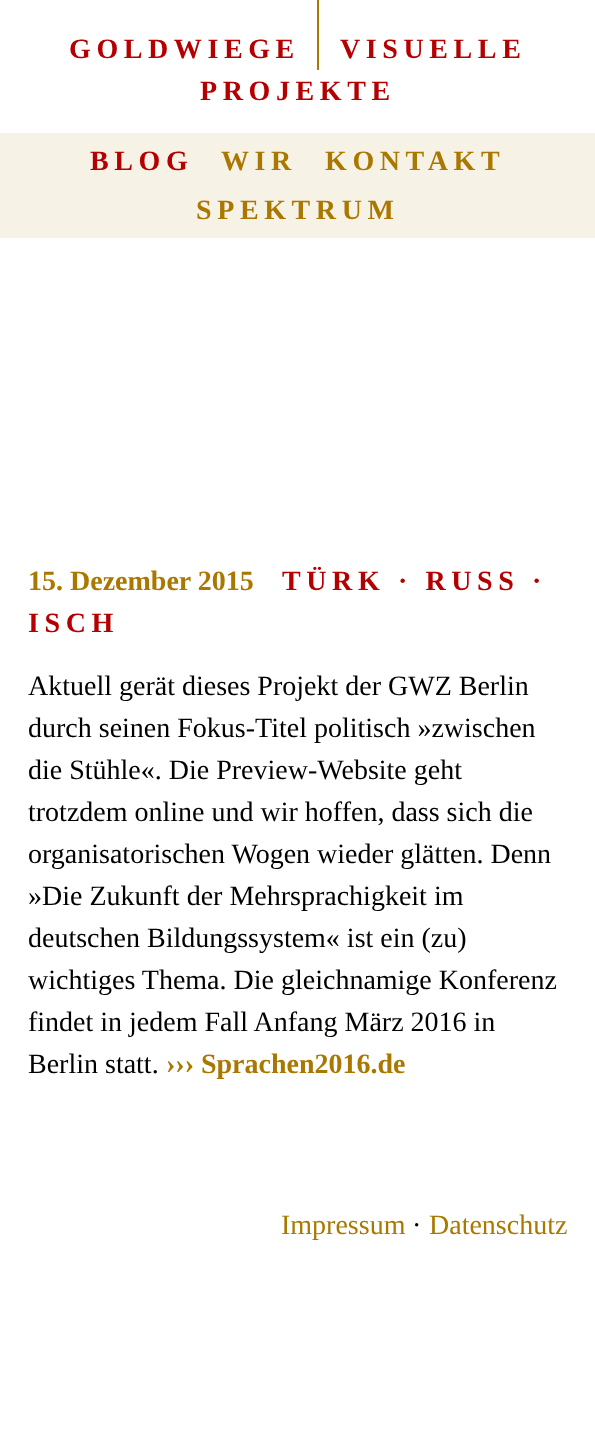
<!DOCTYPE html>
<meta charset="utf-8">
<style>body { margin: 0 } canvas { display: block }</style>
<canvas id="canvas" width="595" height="1448"></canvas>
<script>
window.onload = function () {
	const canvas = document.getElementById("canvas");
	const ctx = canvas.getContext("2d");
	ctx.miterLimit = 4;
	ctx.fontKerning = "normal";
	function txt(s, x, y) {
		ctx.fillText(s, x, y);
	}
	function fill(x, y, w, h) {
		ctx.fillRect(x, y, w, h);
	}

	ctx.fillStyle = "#FFFFFF";
	fill(0, 0, 595, 1448);
	ctx.fillStyle = "#AA7800";
	fill(317, 0, 2, 70);
	ctx.fillStyle = "#F7F2E6";
	fill(0, 133, 595, 105);
	ctx.letterSpacing = "5.6px";
	ctx.font = "bold 28px Liberation Serif";
	ctx.fillStyle = "#B40000";
	txt("GOLDWIEGE", 69, 58);
	txt("VISUELLE", 340, 58);
	txt("PROJEKTE", 200, 100);
	txt("BLOG", 90, 170);
	ctx.fillStyle = "#AA7800";
	txt("WIR", 221, 170);
	txt("KONTAKT", 325, 170);
	txt("SPEKTRUM", 196, 219);
	ctx.letterSpacing = "0px";
	txt("15. Dezember 2015", 28, 590);
	ctx.letterSpacing = "5.6px";
	ctx.fillStyle = "#B40000";
	txt("TÜRK · RUSS ·", 282, 590);
	txt("ISCH", 28, 632);
	ctx.letterSpacing = "0px";
	ctx.font = "28px Liberation Serif";
	ctx.fillStyle = "#000000";
	txt("Aktuell gerät dieses Projekt der GWZ Berlin", 28, 695);
	txt("durch seinen Fokus-Titel politisch »zwischen", 28, 737);
	txt("die Stühle«. Die Preview-Website geht", 28, 779);
	txt("trotzdem online und wir hoffen, dass sich die", 28, 821);
	txt("organisatorischen Wogen wieder glätten. Denn", 28, 863);
	txt("»Die Zukunft der Mehrsprachigkeit im", 28, 905);
	txt("deutschen Bildungssystem« ist ein (zu)", 28, 947);
	txt("wichtiges Thema. Die gleichnamige Konferenz", 28, 989);
	txt("findet in jedem Fall Anfang März 2016 in", 28, 1031);
	txt("Berlin statt.", 28, 1073);
	ctx.font = "bold 28px Liberation Serif";
	ctx.fillStyle = "#AA7800";
	txt("››› Sprachen2016.de", 166, 1073);
	ctx.font = "28px Liberation Serif";
	txt("Impressum", 281, 1234);
	ctx.fillStyle = "#000000";
	txt("·", 412, 1234);
	ctx.fillStyle = "#AA7800";
	txt("Datenschutz", 429, 1234);
};
</script>
